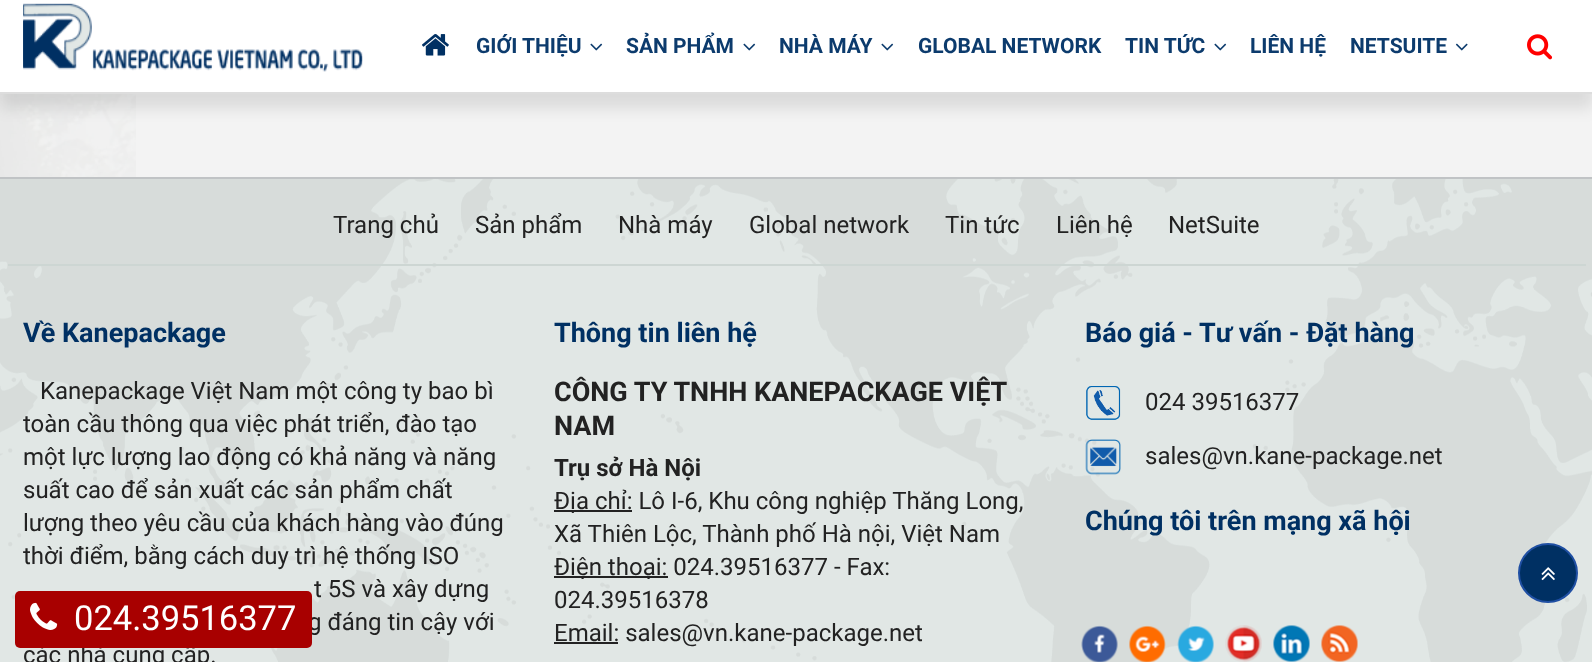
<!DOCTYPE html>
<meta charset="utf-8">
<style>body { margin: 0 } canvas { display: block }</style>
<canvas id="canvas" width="1592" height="662"></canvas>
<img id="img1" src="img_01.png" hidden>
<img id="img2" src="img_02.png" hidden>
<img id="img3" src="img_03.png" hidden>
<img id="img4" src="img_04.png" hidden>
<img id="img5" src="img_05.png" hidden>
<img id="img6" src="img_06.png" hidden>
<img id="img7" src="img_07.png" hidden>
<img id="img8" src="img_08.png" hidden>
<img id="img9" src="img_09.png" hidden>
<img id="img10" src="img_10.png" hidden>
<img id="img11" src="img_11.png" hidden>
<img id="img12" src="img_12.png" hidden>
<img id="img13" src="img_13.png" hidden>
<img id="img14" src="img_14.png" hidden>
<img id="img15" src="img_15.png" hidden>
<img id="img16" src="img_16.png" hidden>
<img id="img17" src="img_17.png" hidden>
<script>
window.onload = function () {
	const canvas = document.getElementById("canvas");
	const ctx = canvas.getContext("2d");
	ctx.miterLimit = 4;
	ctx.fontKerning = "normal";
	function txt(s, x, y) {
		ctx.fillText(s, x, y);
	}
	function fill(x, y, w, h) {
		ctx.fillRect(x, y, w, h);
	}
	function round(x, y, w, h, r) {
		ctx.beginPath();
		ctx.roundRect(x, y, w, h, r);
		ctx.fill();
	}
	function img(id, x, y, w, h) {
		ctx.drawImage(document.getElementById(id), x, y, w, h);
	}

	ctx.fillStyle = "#F3F3F3";
	fill(0, 0, 1592, 662);
	img("img1", 0, 94, 136, 83);
	ctx.fillStyle = "rgba(0, 0, 0, 0.1)";
	ctx.filter = "blur(7.5px)";
	ctx.beginPath();
	ctx.rect(0, 15, 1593, 93);
	ctx.fill();
	ctx.filter = "none";
	ctx.fillStyle = "#FFFFFF";
	fill(0, 0, 1592, 92);
	ctx.fillStyle = "#DDDDDD";
	fill(0, 92, 1592, 2);
	img("img2", 23, 3, 340, 69);
	img("img3", 422, 34, 27, 22);
	img("img4", 590, 43, 13, 8);
	img("img4", 743, 43, 13, 8);
	img("img4", 881, 43, 13, 8);
	img("img4", 1214, 43, 13, 8);
	img("img5", 1455, 43, 13, 8);
	img("img6", 1527, 34, 26, 26);
	ctx.fillStyle = "#E1E7E5";
	fill(0, 179, 1592, 483);
	img("img7", 0, 179, 1592, 483);
	ctx.fillStyle = "#C0C3C5";
	fill(0, 177, 1592, 2);
	ctx.fillStyle = "#CDD6D3";
	fill(8, 264, 1578, 2);
	ctx.fillStyle = "#222222";
	fill(554, 510, 78, 2);
	fill(554, 576, 114, 2);
	fill(554, 642, 64, 2);
	img("img8", 1086, 386, 35, 34);
	img("img9", 1085, 439, 36, 36);
	img("img10", 1081, 625, 37, 37);
	img("img11", 1129, 625, 37, 37);
	img("img12", 1177, 625, 37, 37);
	img("img13", 1225, 625, 37, 37);
	img("img14", 1273, 625, 37, 37);
	img("img15", 1321, 625, 37, 37);
	ctx.fillStyle = "#003063";
	ctx.beginPath();
	ctx.arc(1548, 573, 29, 0, Math.PI * 2);
	ctx.fill();
	ctx.strokeStyle = "#1F4FA3";
	ctx.lineWidth = 2;
	ctx.stroke();
	img("img16", 1541, 567, 14, 14);
	ctx.font = "bold 21px Roboto";
	ctx.fillStyle = "#0C3B6D";
	txt("GIỚI THIỆU", 476, 53);
	txt("SẢN PHẨM", 626, 53);
	txt("NHÀ MÁY", 779, 53);
	txt("GLOBAL NETWORK", 918, 53);
	txt("TIN TỨC", 1125, 53);
	txt("LIÊN HỆ", 1250, 53);
	txt("NETSUITE", 1350, 53);
	ctx.font = "24px Roboto";
	ctx.fillStyle = "#222222";
	txt("Trang chủ", 333, 233);
	txt("Sản phẩm", 475, 233);
	txt("Nhà máy", 618, 233);
	txt("Global network", 749, 233);
	txt("Tin tức", 945, 233);
	txt("Liên hệ", 1056, 233);
	txt("NetSuite", 1168, 233);
	ctx.font = "bold 27px Roboto";
	ctx.fillStyle = "#003063";
	txt("Về Kanepackage", 23, 342);
	ctx.font = "24px Roboto";
	ctx.fillStyle = "#222222";
	txt("Kanepackage Việt Nam một công ty bao bì", 40, 399);
	txt("toàn cầu thông qua việc phát triển, đào tạo", 23, 432);
	txt("một lực lượng lao động có khả năng và năng", 23, 465);
	txt("suất cao để sản xuất các sản phẩm chất", 23, 498);
	txt("lượng theo yêu cầu của khách hàng vào đúng", 23, 531);
	txt("thời điểm, bằng cách duy trì hệ thống ISO", 23, 564);
	txt("t 5S và xây dựng", 314, 597);
	txt("g đáng tin cậy với", 308, 630);
	txt("các nhà cung cấp.", 23, 663);
	ctx.font = "bold 27px Roboto";
	ctx.fillStyle = "#003063";
	txt("Thông tin liên hệ", 554, 342);
	ctx.fillStyle = "#222222";
	txt("CÔNG TY TNHH KANEPACKAGE VIỆT", 554, 401);
	txt("NAM", 554, 435);
	ctx.font = "bold 24px Roboto";
	txt("Trụ sở Hà Nội", 554, 476);
	ctx.font = "24px Roboto";
	txt("Địa chỉ: Lô I-6, Khu công nghiệp Thăng Long,", 554, 509);
	txt("Xã Thiên Lộc, Thành phố Hà nội, Việt Nam", 554, 542);
	txt("Điện thoại: 024.39516377 - Fax:", 554, 575);
	txt("024.39516378", 554, 608);
	txt("Email: sales@vn.kane-package.net", 554, 641);
	ctx.font = "bold 27px Roboto";
	ctx.fillStyle = "#003063";
	txt("Báo giá - Tư vấn - Đặt hàng", 1085, 342);
	ctx.font = "24px Roboto";
	ctx.fillStyle = "#222222";
	txt("024 39516377", 1145, 410);
	txt("sales@vn.kane-package.net", 1145, 464);
	ctx.font = "bold 27px Roboto";
	ctx.fillStyle = "#003063";
	txt("Chúng tôi trên mạng xã hội", 1085, 530);
	ctx.fillStyle = "#A80000";
	round(15, 591, 297, 57, 5);
	img("img17", 30, 602, 28, 28);
	ctx.font = "34.5px Roboto";
	ctx.fillStyle = "#FFFFFF";
	txt("024.39516377", 74, 630);
};
</script>
